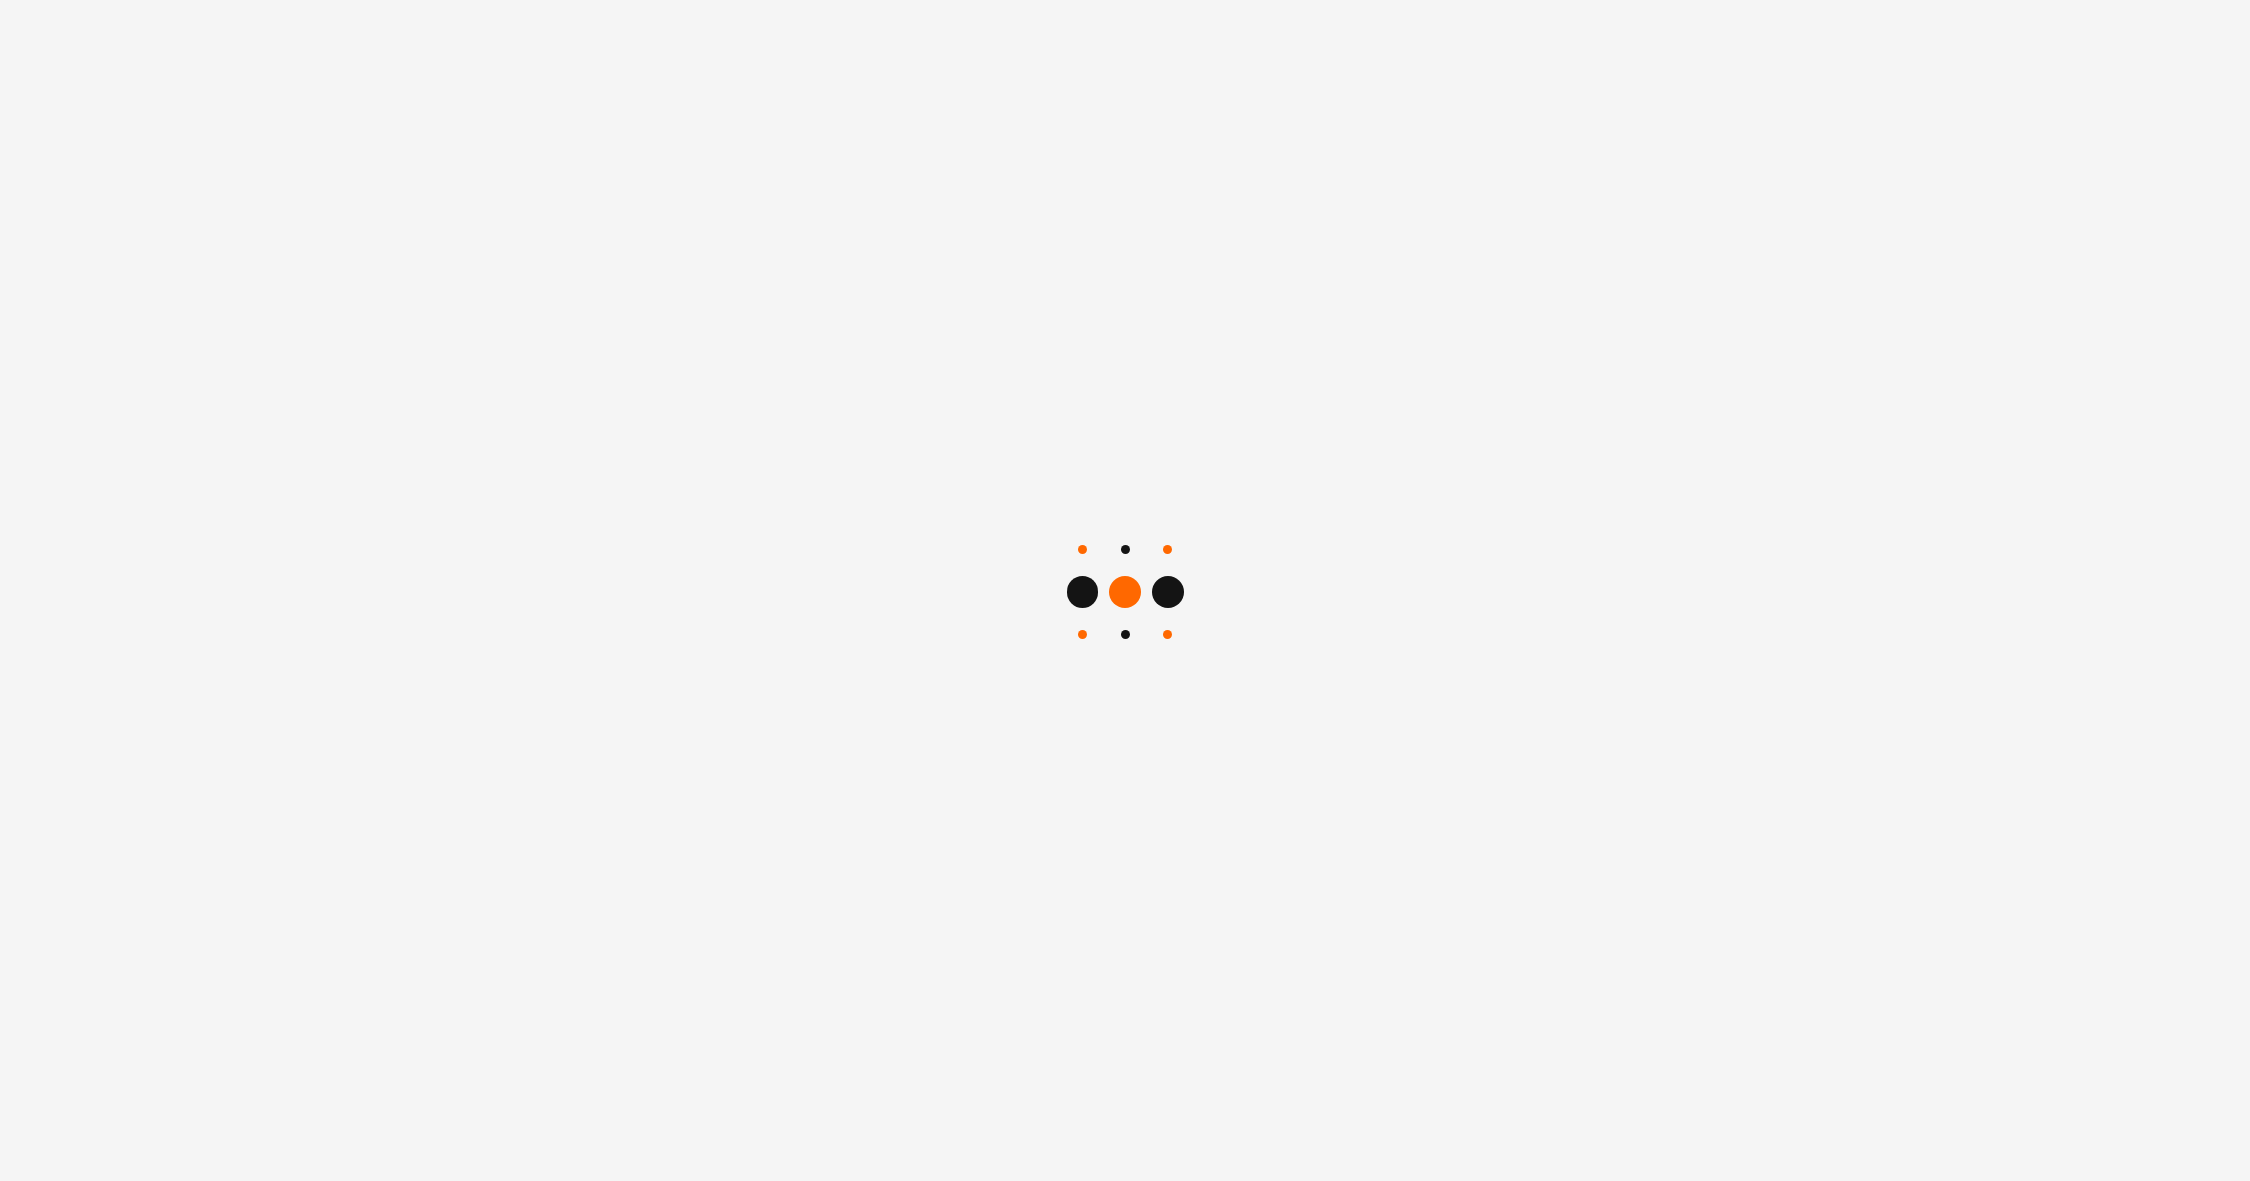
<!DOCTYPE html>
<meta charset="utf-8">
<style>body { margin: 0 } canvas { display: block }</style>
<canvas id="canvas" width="2250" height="1181"></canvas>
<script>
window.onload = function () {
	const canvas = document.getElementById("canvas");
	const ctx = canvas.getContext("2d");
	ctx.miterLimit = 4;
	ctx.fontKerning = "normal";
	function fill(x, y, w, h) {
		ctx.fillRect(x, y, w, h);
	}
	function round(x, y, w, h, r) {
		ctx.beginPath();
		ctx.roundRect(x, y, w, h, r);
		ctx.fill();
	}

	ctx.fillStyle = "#F5F5F5";
	fill(0, 0, 2250, 1181);
	ctx.fillStyle = "#FF6800";
	ctx.beginPath();
	ctx.arc(1167.5, 634.5, 4.5, 0, Math.PI * 2);
	ctx.fill();
	ctx.fillStyle = "#141414";
	ctx.beginPath();
	ctx.arc(1125.5, 634.5, 4.5, 0, Math.PI * 2);
	ctx.fill();
	ctx.fillStyle = "#FF6800";
	ctx.beginPath();
	ctx.arc(1082.5, 634.5, 4.5, 0, Math.PI * 2);
	ctx.fill();
	ctx.fillStyle = "#141414";
	ctx.beginPath();
	ctx.arc(1168, 592, 16, 0, Math.PI * 2);
	ctx.fill();
	ctx.fillStyle = "#FF6800";
	ctx.beginPath();
	ctx.arc(1125, 592, 16, 0, Math.PI * 2);
	ctx.fill();
	ctx.fillStyle = "#141414";
	round(1067, 576, 31, 32, 15.5);
	ctx.fillStyle = "#FF6800";
	ctx.beginPath();
	ctx.arc(1167.5, 549.5, 4.5, 0, Math.PI * 2);
	ctx.fill();
	ctx.fillStyle = "#141414";
	ctx.beginPath();
	ctx.arc(1125.5, 549.5, 4.5, 0, Math.PI * 2);
	ctx.fill();
	ctx.fillStyle = "#FF6800";
	ctx.beginPath();
	ctx.arc(1082.5, 549.5, 4.5, 0, Math.PI * 2);
	ctx.fill();
};
</script>
